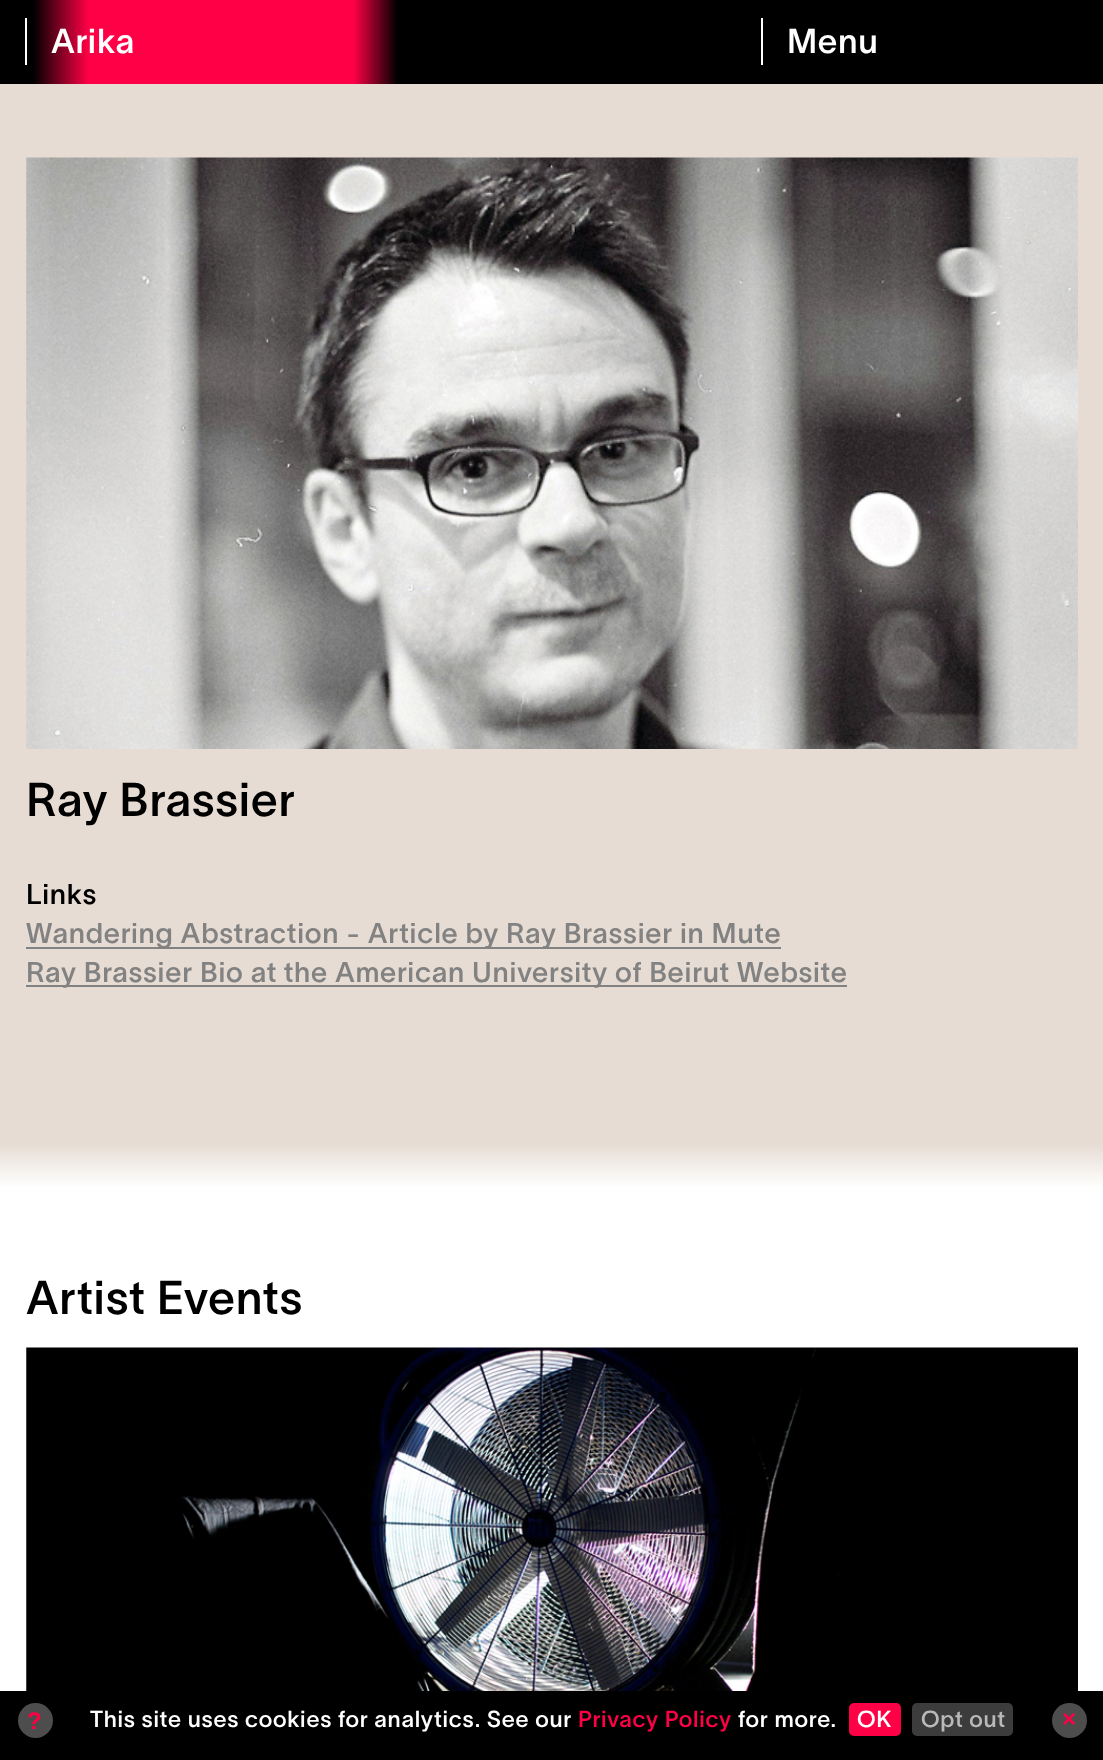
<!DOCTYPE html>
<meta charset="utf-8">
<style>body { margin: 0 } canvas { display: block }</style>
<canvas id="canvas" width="1103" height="1760"></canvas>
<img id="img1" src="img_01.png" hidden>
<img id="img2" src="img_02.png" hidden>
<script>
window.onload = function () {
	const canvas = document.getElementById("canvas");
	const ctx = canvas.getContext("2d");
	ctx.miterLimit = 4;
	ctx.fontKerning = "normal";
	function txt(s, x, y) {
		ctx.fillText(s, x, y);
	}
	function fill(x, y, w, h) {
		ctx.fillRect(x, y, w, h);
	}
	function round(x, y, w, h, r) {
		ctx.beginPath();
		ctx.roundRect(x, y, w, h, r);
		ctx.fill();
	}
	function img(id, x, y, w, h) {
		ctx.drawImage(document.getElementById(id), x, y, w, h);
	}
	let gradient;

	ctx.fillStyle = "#FFFFFF";
	fill(0, 0, 1103, 1760);
	gradient = ctx.createLinearGradient(0, 42, 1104, 42);
	gradient.addColorStop(0, "#000000");
	gradient.addColorStop(0.03, "#000000");
	gradient.addColorStop(0.08, "#FF0046");
	gradient.addColorStop(0.32, "#FF0046");
	gradient.addColorStop(0.36, "#000000");
	ctx.fillStyle = gradient;
	fill(0, 0, 1103, 84);
	ctx.fillStyle = "#FFFFFF";
	fill(25, 18, 2, 47);
	fill(761, 18, 2, 47);
	gradient = ctx.createLinearGradient(552, 84, 552, 1188);
	gradient.addColorStop(0.96, "#E6DCD3");
	gradient.addColorStop(1, "#FFFFFF");
	ctx.fillStyle = gradient;
	fill(0, 84, 1103, 1102);
	img("img1", 26, 157, 1052, 592);
	ctx.fillStyle = "#828282";
	fill(26, 947, 755, 2);
	fill(26, 985, 821, 2);
	img("img2", 26, 1347, 1052, 344);
	ctx.fillStyle = "#000000";
	fill(0, 1691, 1103, 69);
	ctx.fillStyle = "#4D4D4D";
	ctx.beginPath();
	ctx.arc(35.5, 1720.5, 17.5, 0, Math.PI * 2);
	ctx.fill();
	ctx.fillStyle = "#FF0046";
	round(849, 1703, 52, 33, 5);
	ctx.fillStyle = "#3C3C3C";
	round(912, 1703, 101, 33, 5);
	ctx.fillStyle = "#4D4D4D";
	ctx.beginPath();
	ctx.arc(1069.5, 1720.5, 17.5, 0, Math.PI * 2);
	ctx.fill();
	ctx.letterSpacing = "0.73px";
	ctx.font = "500 34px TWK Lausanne";
	ctx.fillStyle = "#FFFFFF";
	txt("Arika", 51, 53);
	txt("Menu", 787, 53);
	ctx.font = "500 46.5px TWK Lausanne";
	ctx.fillStyle = "#000000";
	txt("Ray Brassier", 26, 816);
	ctx.font = "500 28.2px TWK Lausanne";
	txt("Links", 26, 904);
	ctx.fillStyle = "#828282";
	txt("Wandering Abstraction - Article by Ray Brassier in Mute", 26, 943);
	txt("Ray Brassier Bio at the American University of Beirut Website", 26, 982);
	ctx.font = "500 46.5px TWK Lausanne";
	ctx.fillStyle = "#000000";
	txt("Artist Events", 26, 1314);
	ctx.font = "bold 24px Liberation Sans";
	ctx.fillStyle = "#FF0046";
	txt("?", 27, 1729);
	ctx.font = "500 22.75px TWK Lausanne";
	ctx.fillStyle = "#FFFFFF";
	txt("This site uses cookies for analytics. See our", 90, 1727);
	ctx.fillStyle = "#FF0046";
	txt("Privacy Policy", 578, 1727);
	ctx.fillStyle = "#FFFFFF";
	txt("for more.", 738, 1727);
	txt("OK", 857, 1727);
	ctx.fillStyle = "#B9B9B9";
	txt("Opt out", 921, 1727);
	ctx.font = "bold 24px Liberation Sans";
	ctx.fillStyle = "#FF0046";
	txt("×", 1062, 1727);
};
</script>
